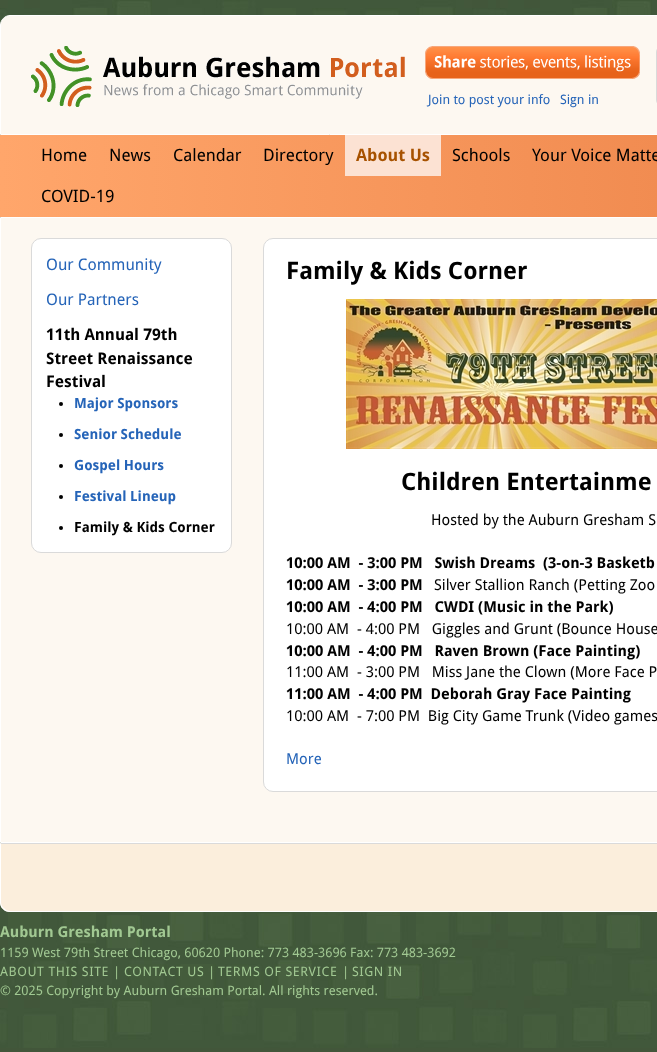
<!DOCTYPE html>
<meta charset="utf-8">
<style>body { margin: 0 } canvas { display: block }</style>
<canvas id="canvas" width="657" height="1052"></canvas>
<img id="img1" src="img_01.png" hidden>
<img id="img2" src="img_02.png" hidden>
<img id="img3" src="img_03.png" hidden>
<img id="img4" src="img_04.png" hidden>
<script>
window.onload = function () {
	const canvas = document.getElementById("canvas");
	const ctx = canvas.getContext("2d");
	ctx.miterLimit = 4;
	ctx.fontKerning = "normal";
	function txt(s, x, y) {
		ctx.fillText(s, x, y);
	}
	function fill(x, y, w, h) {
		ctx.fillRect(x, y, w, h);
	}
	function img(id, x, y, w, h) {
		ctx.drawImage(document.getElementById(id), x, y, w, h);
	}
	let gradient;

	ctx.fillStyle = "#42563A";
	fill(0, 0, 657, 1052);
	img("img1", 0, 0, 657, 1048);
	ctx.fillStyle = "#FDF8F1";
	ctx.beginPath();
	ctx.moveTo(10, 15.5);
	ctx.lineTo(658, 15.5);
	ctx.bezierCurveTo(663, 15.5, 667.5, 20, 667.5, 25);
	ctx.lineTo(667.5, 134.5);
	ctx.lineTo(0.5, 134.5);
	ctx.lineTo(0.5, 25);
	ctx.bezierCurveTo(0.5, 20, 5, 15.5, 10, 15.5);
	ctx.closePath();
	ctx.fill();
	ctx.strokeStyle = "#FFFFFF";
	ctx.stroke();
	img("img2", 31, 46, 374, 61);
	img("img3", 425, 46, 215, 33);
	ctx.beginPath();
	ctx.roundRect(656.5, 46.5, 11, 59, 9.5);
	ctx.strokeStyle = "#DADADA";
	ctx.stroke();
	gradient = ctx.createLinearGradient(0, 135, 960, 135);
	gradient.addColorStop(0, "#FFA66B");
	gradient.addColorStop(1, "#EB8045");
	ctx.fillStyle = gradient;
	fill(0, 135, 657, 82);
	ctx.fillStyle = "#FCE2D3";
	fill(345, 135, 96, 41);
	ctx.fillStyle = "#FDF8F1";
	ctx.beginPath();
	ctx.rect(0.5, 217.5, 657, 625);
	ctx.fill();
	ctx.strokeStyle = "#FFFFFF";
	ctx.stroke();
	ctx.fillStyle = "#FFFFFF";
	ctx.beginPath();
	ctx.roundRect(31.5, 238.5, 200, 314, 9.5);
	ctx.fill();
	ctx.strokeStyle = "#DADADA";
	ctx.stroke();
	ctx.fillStyle = "#000000";
	ctx.beginPath();
	ctx.arc(61, 404, 2, 0, Math.PI * 2);
	ctx.fill();
	ctx.beginPath();
	ctx.arc(61, 435, 2, 0, Math.PI * 2);
	ctx.fill();
	ctx.beginPath();
	ctx.arc(61, 466, 2, 0, Math.PI * 2);
	ctx.fill();
	ctx.beginPath();
	ctx.arc(61, 497, 2, 0, Math.PI * 2);
	ctx.fill();
	ctx.beginPath();
	ctx.arc(61, 528, 2, 0, Math.PI * 2);
	ctx.fill();
	ctx.fillStyle = "#FFFFFF";
	ctx.beginPath();
	ctx.roundRect(263.5, 238.5, 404, 553, 9.5);
	ctx.fill();
	ctx.stroke();
	img("img4", 346, 299, 311, 150);
	ctx.fillStyle = "#FBEEDC";
	ctx.beginPath();
	ctx.moveTo(0, 843);
	ctx.lineTo(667, 843);
	ctx.lineTo(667, 902);
	ctx.bezierCurveTo(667, 907.5, 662.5, 912, 657, 912);
	ctx.lineTo(10, 912);
	ctx.bezierCurveTo(4.5, 912, 0, 907.5, 0, 902);
	ctx.closePath();
	ctx.fill();
	ctx.fillStyle = "#DADADA";
	ctx.beginPath();
	ctx.moveTo(0, 843);
	ctx.lineTo(1, 844);
	ctx.lineTo(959, 844);
	ctx.lineTo(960, 843);
	ctx.closePath();
	ctx.fill();
	ctx.fillStyle = "#FFFFFF";
	ctx.beginPath();
	ctx.moveTo(10, 912);
	ctx.lineTo(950, 912);
	ctx.bezierCurveTo(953, 912, 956, 911, 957, 909);
	ctx.lineTo(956, 908);
	ctx.bezierCurveTo(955, 910, 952, 911, 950, 911);
	ctx.lineTo(10, 911);
	ctx.bezierCurveTo(8, 911, 5, 910, 4, 908);
	ctx.lineTo(3, 909);
	ctx.bezierCurveTo(4, 911, 7, 912, 10, 912);
	ctx.closePath();
	ctx.fill();
	ctx.beginPath();
	ctx.moveTo(1, 844);
	ctx.lineTo(0, 843);
	ctx.lineTo(0, 902);
	ctx.bezierCurveTo(0, 905, 1, 908, 3, 909);
	ctx.lineTo(4, 908);
	ctx.bezierCurveTo(2, 907, 1, 904, 1, 902);
	ctx.closePath();
	ctx.fill();
	ctx.font = "13px Droid Sans";
	ctx.fillStyle = "#2564B8";
	txt("Join to post your info", 428, 104);
	txt("Sign in", 560, 104);
	ctx.font = "17px Droid Sans";
	ctx.fillStyle = "#000000";
	txt("Home", 41, 161);
	txt("News", 109, 161);
	txt("Calendar", 173, 161);
	txt("Directory", 263, 161);
	ctx.font = "bold 17px Droid Sans";
	ctx.fillStyle = "#A75200";
	txt("About Us", 356, 161);
	ctx.font = "17px Droid Sans";
	ctx.fillStyle = "#000000";
	txt("Schools", 452, 161);
	txt("Your Voice Matte", 532, 161);
	txt("COVID-19", 41, 202);
	ctx.font = "16px Droid Sans";
	ctx.fillStyle = "#2564B8";
	txt("Our Community", 46, 270);
	txt("Our Partners", 46, 305);
	ctx.font = "bold 16px Droid Sans";
	ctx.fillStyle = "#000000";
	txt("11th Annual 79th", 46, 340);
	txt("Street Renaissance", 46, 364);
	txt("Festival", 46, 387);
	ctx.font = "bold 14px Droid Sans";
	ctx.fillStyle = "#2564B8";
	txt("Major Sponsors", 74, 408);
	txt("Senior Schedule", 74, 439);
	txt("Gospel Hours", 74, 470);
	txt("Festival Lineup", 74, 501);
	ctx.fillStyle = "#000000";
	txt("Family & Kids Corner", 74, 532);
	ctx.font = "bold 24px Droid Sans";
	txt("Family & Kids Corner", 286, 279);
	txt("Children Entertainme", 401, 490);
	ctx.font = "15px Droid Sans";
	txt("Hosted by the Auburn Gresham S", 431, 525);
	ctx.font = "bold 15px Droid Sans";
	txt("10:00 AM  - 3:00 PM   Swish Dreams  (3-on-3 Basketb", 286, 568);
	txt("10:00 AM  - 3:00 PM", 286, 590);
	ctx.font = "15px Droid Sans";
	txt("Silver Stallion Ranch (Petting Zoo", 434, 590);
	ctx.font = "bold 15px Droid Sans";
	txt("10:00 AM  - 4:00 PM   CWDI (Music in the Park)", 286, 612);
	ctx.font = "15px Droid Sans";
	txt("10:00 AM  - 4:00 PM   Giggles and Grunt (Bounce House", 286, 634);
	ctx.font = "bold 15px Droid Sans";
	txt("10:00 AM  - 4:00 PM   Raven Brown (Face Painting)", 286, 656);
	ctx.font = "15px Droid Sans";
	txt("11:00 AM  - 3:00 PM   Miss Jane the Clown (More Face P", 286, 677);
	ctx.font = "bold 15px Droid Sans";
	txt("11:00 AM  - 4:00 PM  Deborah Gray Face Painting", 286, 699);
	ctx.font = "15px Droid Sans";
	txt("10:00 AM  - 7:00 PM  Big City Game Trunk (Video games", 286, 721);
	ctx.fillStyle = "#2564B8";
	txt("More", 286, 764);
	ctx.font = "bold 15px Droid Sans";
	ctx.fillStyle = "#A1C892";
	txt("Auburn Gresham Portal", 0, 937);
	ctx.font = "13px Droid Sans";
	txt("1159 West 79th Street Chicago, 60620 Phone: 773 483-3696 Fax: 773 483-3692", 0, 957);
	ctx.letterSpacing = "0.6px";
	txt("ABOUT THIS SITE", 0, 976);
	ctx.letterSpacing = "0px";
	txt("|", 113, 976);
	ctx.letterSpacing = "0.6px";
	txt("CONTACT US", 124, 976);
	ctx.letterSpacing = "0px";
	txt("|", 208, 976);
	ctx.letterSpacing = "0.6px";
	txt("TERMS OF SERVICE", 218, 976);
	ctx.letterSpacing = "0px";
	txt("|", 342, 976);
	ctx.letterSpacing = "0.6px";
	txt("SIGN IN", 352, 976);
	ctx.letterSpacing = "0px";
	txt("© 2025 Copyright by Auburn Gresham Portal. All rights reserved.", 0, 995);
};
</script>
